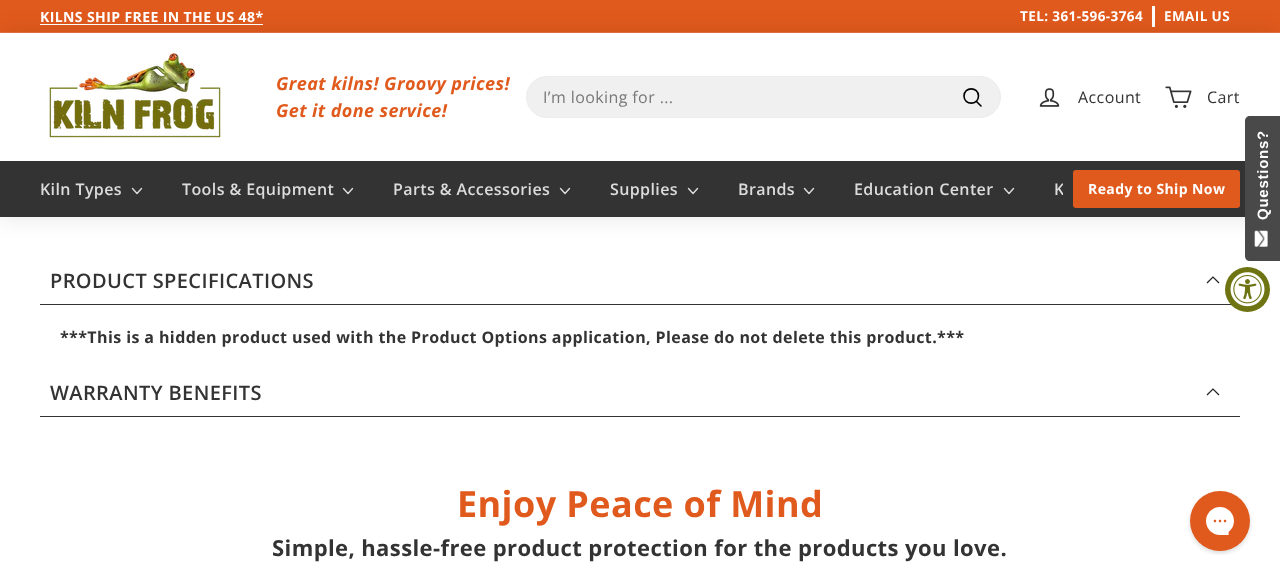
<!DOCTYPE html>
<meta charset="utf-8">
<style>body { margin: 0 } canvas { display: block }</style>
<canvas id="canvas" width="1280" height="578"></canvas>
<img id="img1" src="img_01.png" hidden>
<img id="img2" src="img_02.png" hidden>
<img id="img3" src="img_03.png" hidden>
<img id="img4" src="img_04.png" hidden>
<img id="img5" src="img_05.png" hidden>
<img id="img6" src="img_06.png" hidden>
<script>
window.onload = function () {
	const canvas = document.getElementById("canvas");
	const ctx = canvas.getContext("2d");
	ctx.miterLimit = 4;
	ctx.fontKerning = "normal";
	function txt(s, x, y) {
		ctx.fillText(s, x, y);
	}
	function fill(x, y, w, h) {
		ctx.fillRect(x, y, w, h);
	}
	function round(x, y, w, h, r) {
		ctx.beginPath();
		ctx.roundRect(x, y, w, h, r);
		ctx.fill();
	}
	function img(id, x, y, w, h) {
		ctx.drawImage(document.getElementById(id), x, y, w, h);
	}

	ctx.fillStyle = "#FFFFFF";
	fill(0, 0, 1280, 578);
	ctx.fillStyle = "#E15A1D";
	fill(0, 0, 1280, 32);
	ctx.fillStyle = "#FFFFFF";
	fill(40, 24, 223, 1);
	fill(1152, 6, 3, 21);
	ctx.fillStyle = "#E6733F";
	fill(0, 32, 1280, 1);
	ctx.fillStyle = "rgba(0, 0, 0, 0.1)";
	ctx.filter = "blur(12.5px)";
	ctx.beginPath();
	ctx.rect(0, 33, 1280, 128);
	ctx.fill();
	ctx.filter = "none";
	ctx.filter = "blur(12.5px)";
	ctx.beginPath();
	ctx.rect(0, 161, 1280, 56);
	ctx.fill();
	ctx.filter = "none";
	ctx.fillStyle = "#FFFFFF";
	fill(0, 33, 1280, 128);
	img("img1", 49, 53, 172, 85);
	ctx.fillStyle = "#F0F0F0";
	ctx.beginPath();
	ctx.roundRect(526.5, 76.5, 474, 41, 20.5);
	ctx.fill();
	ctx.strokeStyle = "#EFEBEB";
	ctx.stroke();
	ctx.beginPath();
	ctx.moveTo(978.5, 96);
	ctx.bezierCurveTo(978.5, 105.5, 964, 105.5, 964, 96);
	ctx.bezierCurveTo(964, 86.5, 978.5, 86.5, 978.5, 96);
	ctx.closePath();
	ctx.moveTo(981, 106);
	ctx.lineTo(976.5, 101.5);
	ctx.strokeStyle = "#000000";
	ctx.lineWidth = 1.6;
	ctx.lineCap = "round";
	ctx.lineJoin = "round";
	ctx.stroke();
	img("img2", 1039, 88, 21, 19);
	img("img3", 1165, 86, 27, 22);
	ctx.fillStyle = "#333333";
	fill(0, 161, 1245, 56);
	ctx.beginPath();
	ctx.moveTo(132.5, 188.5);
	ctx.lineTo(137, 193.5);
	ctx.lineTo(141.5, 188.5);
	ctx.strokeStyle = "#DCDCDC";
	ctx.lineWidth = 1.4;
	ctx.stroke();
	ctx.beginPath();
	ctx.moveTo(343.5, 188.5);
	ctx.lineTo(348, 193.5);
	ctx.lineTo(352.5, 188.5);
	ctx.stroke();
	ctx.beginPath();
	ctx.moveTo(560.5, 188.5);
	ctx.lineTo(565, 193.5);
	ctx.lineTo(569.5, 188.5);
	ctx.stroke();
	ctx.beginPath();
	ctx.moveTo(688.5, 188.5);
	ctx.lineTo(693, 193.5);
	ctx.lineTo(697.5, 188.5);
	ctx.stroke();
	ctx.beginPath();
	ctx.moveTo(804.5, 188.5);
	ctx.lineTo(809, 193.5);
	ctx.lineTo(813.5, 188.5);
	ctx.stroke();
	ctx.beginPath();
	ctx.moveTo(1004.5, 188.5);
	ctx.lineTo(1009, 193.5);
	ctx.lineTo(1013.5, 188.5);
	ctx.stroke();
	ctx.fillStyle = "#E15A1D";
	round(1073, 170, 167, 38, 3);
	ctx.fillStyle = "#333333";
	fill(40, 304, 1200, 1);
	ctx.beginPath();
	ctx.moveTo(1207, 283);
	ctx.lineTo(1213, 277);
	ctx.lineTo(1219, 283);
	ctx.strokeStyle = "#1F1F21";
	ctx.lineWidth = 1.2;
	ctx.lineCap = "butt";
	ctx.lineJoin = "miter";
	ctx.stroke();
	fill(40, 416, 1200, 1);
	ctx.beginPath();
	ctx.moveTo(1207, 395);
	ctx.lineTo(1213, 389);
	ctx.lineTo(1219, 395);
	ctx.stroke();
	ctx.fillStyle = "#494949";
	ctx.beginPath();
	ctx.moveTo(1245, 256);
	ctx.lineTo(1245, 121);
	ctx.bezierCurveTo(1245, 118, 1247, 116, 1250, 116);
	ctx.lineTo(1280, 116);
	ctx.lineTo(1280, 261);
	ctx.lineTo(1250, 261);
	ctx.bezierCurveTo(1247, 261, 1245, 259, 1245, 256);
	ctx.closePath();
	ctx.fill();
	img("img4", 1254, 230, 14, 17);
	ctx.fillStyle = "#6E7412";
	ctx.beginPath();
	ctx.arc(1247.5, 289.5, 22.5, 0, Math.PI * 2);
	ctx.fill();
	img("img5", 1230, 272, 35, 35);
	img("img6", 1188, 491, 64, 64);
	ctx.letterSpacing = "0.4px";
	ctx.font = "bold 14px Open Sans";
	ctx.fillStyle = "#FFFFFF";
	txt("KILNS SHIP FREE IN THE US 48*", 40, 22);
	ctx.font = "bold 13.5px Open Sans";
	txt("TEL: 361-596-3764", 1020, 21);
	txt("EMAIL US", 1164, 21);
	ctx.font = "italic bold 18px Open Sans";
	ctx.fillStyle = "#E15A1D";
	txt("Great kilns! Groovy prices!", 276, 90);
	txt("Get it done service!", 276, 117);
	ctx.font = "16px Open Sans";
	ctx.fillStyle = "#787878";
	txt("I’m looking for ...", 543, 103);
	ctx.fillStyle = "#333333";
	txt("Account", 1078, 103);
	txt("Cart", 1207, 103);
	ctx.font = "600 16px Open Sans";
	ctx.fillStyle = "#DCDCDC";
	txt("Kiln Types", 40, 195);
	txt("Tools & Equipment", 182, 195);
	txt("Parts & Accessories", 393, 195);
	txt("Supplies", 610, 195);
	txt("Brands", 738, 195);
	txt("Education Center", 854, 195);
	txt("K", 1054, 195);
	ctx.fillStyle = "#333333";
	fill(1063, 183, 1, 12);
	ctx.font = "bold 14px Open Sans";
	ctx.fillStyle = "#FFFFFF";
	txt("Ready to Ship Now", 1088, 194);
	ctx.font = "600 20px Open Sans";
	ctx.fillStyle = "#333333";
	txt("PRODUCT SPECIFICATIONS", 50, 288);
	ctx.font = "bold 16px Open Sans";
	txt("***This is a hidden product used with the Product Options application, Please do not delete this product.***", 60, 343);
	ctx.font = "600 20px Open Sans";
	txt("WARRANTY BENEFITS", 50, 400);
	ctx.font = "bold 36px Open Sans";
	ctx.fillStyle = "#E15A1D";
	txt("Enjoy Peace of Mind", 457, 517);
	ctx.font = "bold 22px Open Sans";
	ctx.fillStyle = "#333333";
	txt("Simple, hassle-free product protection for the products you love.", 272, 556);
	ctx.letterSpacing = "0.75px";
	ctx.font = "bold 15px Liberation Sans";
	ctx.fillStyle = "#FFFFFF";
	ctx.save();
	ctx.translate(1268, 220);
	ctx.rotate(-90 * Math.PI / 180);
	ctx.fillText("Questions?", 0, 0);
	ctx.restore();
};
</script>
